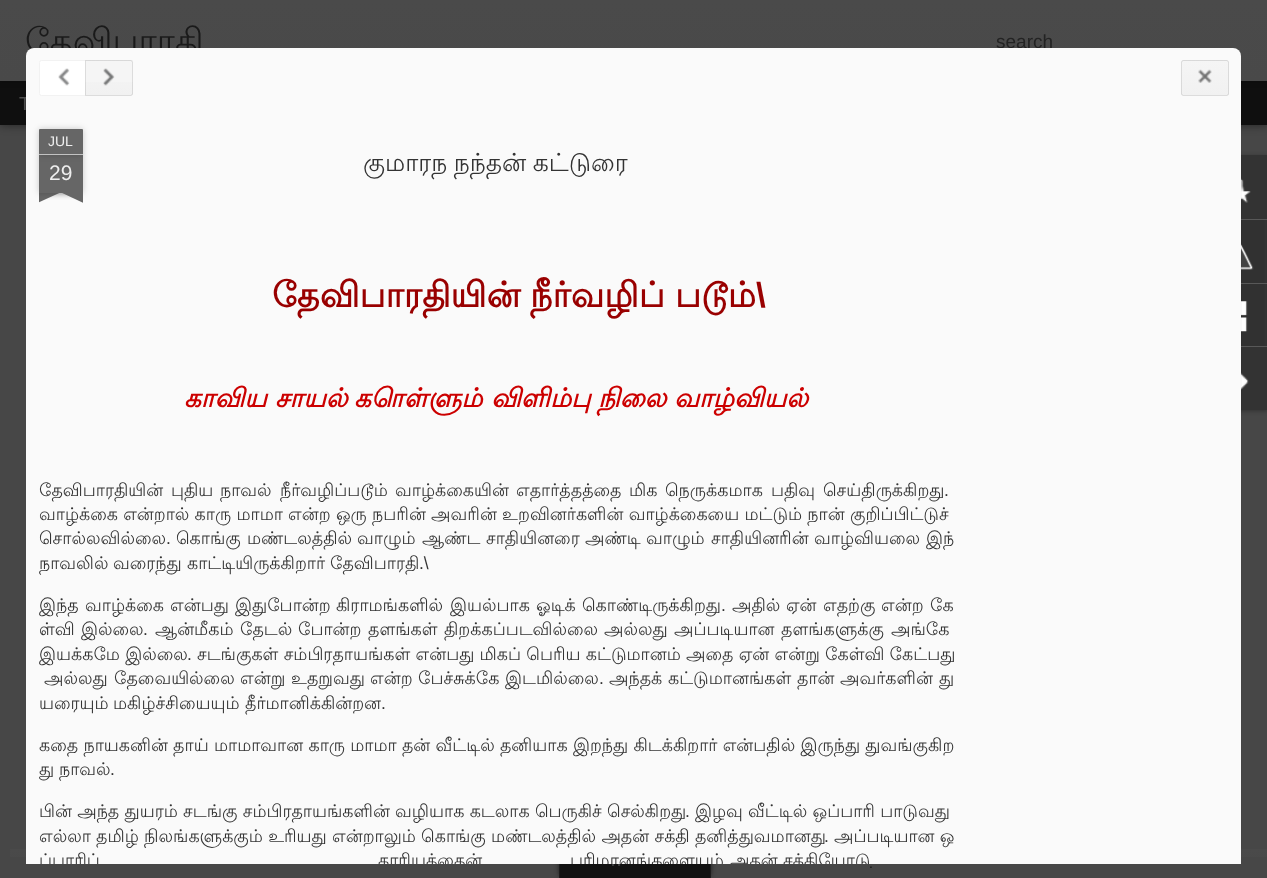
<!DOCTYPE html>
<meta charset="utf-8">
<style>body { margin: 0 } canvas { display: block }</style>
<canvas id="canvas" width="1267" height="878"></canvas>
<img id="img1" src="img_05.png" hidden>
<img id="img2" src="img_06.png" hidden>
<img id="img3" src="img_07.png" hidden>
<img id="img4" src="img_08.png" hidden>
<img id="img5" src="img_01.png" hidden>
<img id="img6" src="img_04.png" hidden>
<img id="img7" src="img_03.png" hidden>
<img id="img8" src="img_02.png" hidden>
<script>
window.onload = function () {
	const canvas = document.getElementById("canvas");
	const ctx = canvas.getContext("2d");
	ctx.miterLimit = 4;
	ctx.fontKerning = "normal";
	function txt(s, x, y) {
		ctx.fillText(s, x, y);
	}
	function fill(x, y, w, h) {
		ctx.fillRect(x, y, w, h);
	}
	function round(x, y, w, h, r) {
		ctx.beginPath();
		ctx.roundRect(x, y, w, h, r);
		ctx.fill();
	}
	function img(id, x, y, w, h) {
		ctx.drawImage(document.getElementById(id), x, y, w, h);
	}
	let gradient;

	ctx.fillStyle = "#474747";
	fill(0, 0, 1267, 878);
	ctx.fillStyle = "rgba(0, 0, 0, 0.5)";
	ctx.filter = "blur(5px)";
	ctx.beginPath();
	ctx.rect(0, 81, 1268, 44);
	ctx.fill();
	ctx.filter = "none";
	ctx.fillStyle = "#0F0F0F";
	fill(0, 81, 1267, 44);
	ctx.fillStyle = "rgba(0, 0, 0, 0.3)";
	ctx.filter = "blur(3px)";
	ctx.beginPath();
	ctx.rect(0, 0, 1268, 81);
	ctx.fill();
	ctx.filter = "none";
	gradient = ctx.createLinearGradient(0, 0, 0, 81);
	gradient.addColorStop(0, "#4A4A4A");
	gradient.addColorStop(1, "#494949");
	ctx.fillStyle = gradient;
	fill(0, 0, 1267, 81);
	ctx.fillStyle = "rgba(0, 0, 0, 0.3)";
	ctx.filter = "blur(2px)";
	ctx.beginPath();
	ctx.roundRect(1205, 156, 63, 255, 2.5);
	ctx.fill();
	ctx.filter = "none";
	ctx.fillStyle = "#333333";
	fill(1241, 155, 26, 64);
	img("img1", 1241, 178, 10, 25);
	ctx.fillStyle = "#585858";
	fill(1241, 219, 26, 1);
	img("img2", 1241, 243, 13, 27);
	ctx.fillStyle = "#333333";
	fill(1266, 220, 1, 126);
	ctx.fillStyle = "#585858";
	fill(1241, 283, 26, 1);
	img("img3", 1241, 301, 7, 31);
	ctx.fillStyle = "#333333";
	fill(1241, 347, 26, 63);
	ctx.fillStyle = "#585858";
	fill(1241, 346, 26, 1);
	img("img4", 1241, 372, 8, 18);
	img("img5", 1241, 63, 1, 785);
	gradient = ctx.createLinearGradient(650, 849, 650, 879);
	gradient.addColorStop(0, "#4A4A4A");
	gradient.addColorStop(1, "#484848");
	ctx.fillStyle = gradient;
	fill(10, 849, 1257, 8);
	ctx.save();
	ctx.beginPath();
	ctx.moveTo(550, 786);
	ctx.lineTo(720, 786);
	ctx.lineTo(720, 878);
	ctx.lineTo(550, 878);
	ctx.closePath();
	ctx.moveTo(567, 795);
	ctx.lineTo(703, 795);
	ctx.bezierCurveTo(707.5, 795, 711, 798.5, 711, 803);
	ctx.lineTo(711, 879);
	ctx.lineTo(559, 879);
	ctx.lineTo(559, 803);
	ctx.bezierCurveTo(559, 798.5, 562.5, 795, 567, 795);
	ctx.closePath();
	ctx.clip("evenodd");
	ctx.fillStyle = "rgba(15, 15, 15, 0.75)";
	ctx.filter = "blur(2.5px)";
	ctx.beginPath();
	ctx.roundRect(559, 795, 152, 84, 8);
	ctx.fill();
	ctx.filter = "none";
	ctx.restore();
	ctx.fillStyle = "rgba(0, 0, 0, 0.75)";
	fill(559, 864, 152, 14);
	ctx.fillStyle = "rgba(31, 31, 31, 0.75)";
	ctx.beginPath();
	ctx.moveTo(566, 795);
	ctx.lineTo(704, 795);
	ctx.bezierCurveTo(708, 795, 711, 798, 711, 802);
	ctx.lineTo(711, 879);
	ctx.lineTo(559, 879);
	ctx.lineTo(559, 802);
	ctx.bezierCurveTo(559, 798, 562, 795, 566, 795);
	ctx.closePath();
	ctx.moveTo(566, 796);
	ctx.lineTo(704, 796);
	ctx.bezierCurveTo(707, 796, 710, 799, 710, 802);
	ctx.lineTo(710, 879);
	ctx.lineTo(560, 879);
	ctx.lineTo(560, 802);
	ctx.bezierCurveTo(560, 799, 563, 796, 566, 796);
	ctx.closePath();
	ctx.fill("evenodd");
	ctx.font = "35px Lohit Tamil";
	ctx.fillStyle = "#1A1A1A";
	txt("தேவிபாரதி", 25, 53);
	ctx.font = "19px Liberation Sans";
	ctx.fillStyle = "#232323";
	txt("search", 996, 48);
	ctx.fillStyle = "#4D4D4D";
	txt("T", 19, 110);
	ctx.font = "22px Liberation Sans";
	ctx.fillStyle = "#3C3D3E";
	txt("..", 610, 866);
	ctx.fillStyle = "#FAFAFA";
	ctx.beginPath();
	ctx.roundRect(26, 48, 1215, 816, [8, 8, 0, 0]);
	ctx.fill();
	ctx.fillStyle = "#F5F5F5";
	round(1181, 60, 48, 36, 2.5);
	ctx.save();
	ctx.beginPath();
	ctx.roundRect(1181, 60, 48, 36, 2.5);
	ctx.clip();
	gradient = ctx.createLinearGradient(1205, 61, 1205, 95);
	gradient.addColorStop(0, "#F5F5F5");
	gradient.addColorStop(1, "#F1F1F1");
	ctx.fillStyle = gradient;
	fill(1181, 61, 48, 34);
	gradient = ctx.createLinearGradient(1205, 28, 1205, 61);
	gradient.addColorStop(0, "#F5F5F5");
	gradient.addColorStop(1, "#F1F1F1");
	ctx.fillStyle = gradient;
	fill(1181, 60, 48, 1);
	ctx.restore();
	ctx.beginPath();
	ctx.roundRect(1181.5, 60.5, 47, 35, 2);
	ctx.strokeStyle = "rgba(0, 0, 0, 0.1)";
	ctx.stroke();
	img("img6", 1198, 69, 14, 14);
	ctx.fillStyle = "#FFFFFF";
	ctx.beginPath();
	ctx.roundRect(39.5, 60.5, 46, 35, [2, 0, 0, 2]);
	ctx.fill();
	ctx.strokeStyle = "#F2F2F2";
	ctx.stroke();
	ctx.fillStyle = "#F5F5F5";
	ctx.beginPath();
	ctx.roundRect(85, 60, 48, 36, [0, 2.5, 2.5, 0]);
	ctx.fill();
	gradient = ctx.createLinearGradient(109, 61, 109, 95);
	gradient.addColorStop(0, "#F5F5F5");
	gradient.addColorStop(1, "#F1F1F1");
	ctx.fillStyle = gradient;
	fill(85, 82, 48, 13);
	gradient = ctx.createLinearGradient(109, 28, 109, 61);
	gradient.addColorStop(0, "#F5F5F5");
	gradient.addColorStop(1, "#F1F1F1");
	ctx.fillStyle = gradient;
	fill(85, 60, 48, 1);
	ctx.beginPath();
	ctx.roundRect(85.5, 60.5, 47, 35, [0, 2, 2, 0]);
	ctx.strokeStyle = "rgba(0, 0, 0, 0.1)";
	ctx.stroke();
	img("img7", 103, 68, 12, 18);
	img("img8", 58, 68, 12, 18);
	ctx.font = "italic bold 26.25px Lohit Tamil";
	ctx.fillStyle = "#CC0000";
	txt("வாழ்வியல்", 674, 407);
	txt("நிலை", 598, 407);
	txt("விளிம்பு", 491, 407);
	txt("கொள்ளும்", 354, 407);
	txt("சாயல்", 275, 407);
	txt("காவிய", 184, 407);
	ctx.font = "bold 35px Liberation Sans";
	ctx.fillStyle = "#990000";
	txt("\\", 756, 307);
	ctx.font = "bold 35px Lohit Tamil";
	txt("படூம்", 675, 307);
	txt("நீர்வழிப்", 530, 307);
	txt("தேவிபாரதியின்", 272, 307);
	ctx.wordSpacing = "-1px";
	ctx.font = "25px Lohit Tamil";
	ctx.fillStyle = "#333333";
	txt("குமாரந நந்தன் கட்டுரை", 363, 171);
	ctx.fillStyle = "rgba(0, 0, 0, 0.2)";
	ctx.filter = "blur(3px)";
	ctx.beginPath();
	ctx.rect(39, 155, 44, 38);
	ctx.fill();
	ctx.filter = "none";
	ctx.fillStyle = "#666666";
	fill(39, 155, 44, 38);
	ctx.save();
	ctx.beginPath();
	ctx.rect(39, 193, 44, 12);
	ctx.clip();
	ctx.fillStyle = "rgba(0, 0, 0, 0.2)";
	ctx.filter = "blur(3px)";
	ctx.beginPath();
	ctx.rect(28, 180, 62, 13);
	ctx.fill();
	ctx.filter = "none";
	ctx.restore();
	ctx.save();
	ctx.beginPath();
	ctx.rect(39, 193, 44, 12);
	ctx.clip();
	ctx.beginPath();
	ctx.moveTo(28, 194);
	ctx.lineTo(84, 167);
	ctx.lineTo(90, 179);
	ctx.lineTo(33, 205);
	ctx.closePath();
	ctx.fill();
	ctx.restore();
	ctx.save();
	ctx.beginPath();
	ctx.rect(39, 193, 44, 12);
	ctx.clip();
	ctx.fillStyle = "rgba(0, 0, 0, 0.2)";
	ctx.filter = "blur(3px)";
	ctx.beginPath();
	ctx.rect(31, 180, 63, 13);
	ctx.fill();
	ctx.filter = "none";
	ctx.restore();
	ctx.save();
	ctx.beginPath();
	ctx.rect(39, 193, 44, 12);
	ctx.clip();
	ctx.beginPath();
	ctx.moveTo(37, 167);
	ctx.lineTo(93, 194);
	ctx.lineTo(88, 205);
	ctx.lineTo(32, 179);
	ctx.closePath();
	ctx.fill();
	ctx.restore();
	ctx.fillStyle = "rgba(0, 0, 0, 0.2)";
	ctx.filter = "blur(3px)";
	ctx.beginPath();
	ctx.roundRect(39, 129, 44, 26, 1);
	ctx.fill();
	ctx.filter = "none";
	ctx.fillStyle = "#666666";
	ctx.beginPath();
	ctx.roundRect(39, 129, 44, 26, [1, 1, 0, 0]);
	ctx.fill();
	ctx.wordSpacing = "0px";
	ctx.font = "14px Liberation Sans";
	ctx.fillStyle = "#EEEEEE";
	txt("JUL", 48, 146);
	ctx.fillStyle = "#C2C2C2";
	fill(39, 154, 44, 1);
	ctx.font = "21px Liberation Sans";
	ctx.fillStyle = "#EEEEEE";
	txt("29", 49, 180);
	ctx.save();
	ctx.beginPath();
	ctx.rect(26, 110, 1215, 754);
	ctx.clip();
	ctx.font = "17.5px Lohit Tamil";
	ctx.fillStyle = "#333333";
	txt("சக்தியோடு", 783, 866);
	txt("அதன்", 730, 866);
	txt("பரிமானங்களையும்", 570, 866);
	txt("காரியத்தைன்", 378, 866);
	txt("ப்பாரிப்", 39, 866);
	ctx.restore();
	ctx.font = "17.5px Lohit Tamil";
	ctx.fillStyle = "#333333";
	txt("அப்படியான ஒ", 834, 842);
	ctx.font = "17.5px Liberation Sans";
	txt(".", 824, 842);
	ctx.font = "17.5px Lohit Tamil";
	txt("எல்லா தமிழ் நிலங்களுக்கும் உரியது என்றாலும் கொங்கு மண்டலத்தில் அதன் சக்தி தனித்துவமானது", 39, 842);
	txt("இழவு வீட்டில் ஒப்பாரி பாடுவது", 695, 817);
	ctx.font = "17.5px Liberation Sans";
	txt(".", 685, 817);
	ctx.font = "17.5px Lohit Tamil";
	txt("பின் அந்த துயரம் சடங்கு சம்பிரதாயங்களின் வழியாக கடலாக பெருகிச் செல்கிறது", 39, 817);
	ctx.font = "17.5px Liberation Sans";
	txt(".", 110, 775);
	ctx.font = "17.5px Lohit Tamil";
	txt("நாவல்", 59, 775);
	txt("து", 39, 775);
	txt("கதை நாயகனின் தாய் மாமாவான காரு மாமா தன் வீட்டில் தனியாக இறந்து கிடக்கிறார் என்பதில் இருந்து துவங்குகிற", 39, 751);
	ctx.font = "17.5px Liberation Sans";
	txt(".", 381, 709);
	ctx.font = "17.5px Lohit Tamil";
	txt("தீர்மானிக்கின்றன", 245, 709);
	txt("மகிழ்ச்சியையும்", 113, 709);
	txt("யரையும்", 39, 709);
	txt("து", 939, 684);
	txt("அவர்களின்", 840, 684);
	txt("தான்", 797, 684);
	txt("கட்டுமானங்கள்", 668, 684);
	txt("அந்தக்", 609, 684);
	ctx.font = "17.5px Liberation Sans";
	txt(".", 599, 684);
	ctx.font = "17.5px Lohit Tamil";
	txt("இடமில்லை", 505, 684);
	txt("பேச்சுக்கே", 418, 684);
	txt("என்ற", 370, 684);
	txt("உதறுவது", 291, 684);
	txt("என்று", 240, 684);
	txt("தேவையில்லை", 114, 684);
	txt("அல்லது", 44, 684);
	txt("சடங்குகள் சம்பிரதாயங்கள் என்பது மிகப் பெரிய கட்டுமானம் அதை ஏன் என்று கேள்வி கேட்பது", 197, 660);
	ctx.font = "17.5px Liberation Sans";
	txt(".", 187, 660);
	ctx.font = "17.5px Lohit Tamil";
	txt("இயக்கமே இல்லை", 39, 660);
	txt("அங்கே", 891, 635);
	txt("தளங்களுக்கு", 781, 635);
	txt("அப்படியான", 674, 635);
	txt("அல்லது", 604, 635);
	txt("திறக்கப்படவில்லை", 444, 635);
	txt("தளங்கள்", 368, 635);
	txt("போன்ற", 298, 635);
	txt("தேடல்", 240, 635);
	txt("ஆன்மீகம்", 155, 635);
	ctx.font = "17.5px Liberation Sans";
	txt(".", 143, 635);
	ctx.font = "17.5px Lohit Tamil";
	txt("இல்லை", 81, 635);
	txt("ள்வி", 39, 635);
	txt("கே", 930, 611);
	txt("என்ற", 881, 611);
	txt("எதற்கு", 823, 611);
	txt("ஏன்", 786, 611);
	txt("அதில்", 732, 611);
	ctx.font = "17.5px Liberation Sans";
	txt(".", 721, 611);
	ctx.font = "17.5px Lohit Tamil";
	txt("கொண்டிருக்கிறது", 582, 611);
	txt("ஓடிக்", 536, 611);
	txt("இயல்பாக", 450, 611);
	txt("கிராமங்களில்", 336, 611);
	txt("இதுபோன்ற", 235, 611);
	txt("என்பது", 170, 611);
	txt("வாழ்க்கை", 85, 611);
	txt("இந்த", 39, 611);
	ctx.font = "17.5px Liberation Sans";
	txt(".\\", 419, 569);
	ctx.font = "17.5px Lohit Tamil";
	txt("தேவிபாரதி", 330, 569);
	txt("காட்டியிருக்கிறார்", 187, 569);
	txt("வரைந்து", 113, 569);
	txt("நாவலில்", 39, 569);
	txt("இந்", 926, 544);
	txt("வாழ்வியலை", 814, 544);
	txt("சாதியினரின்", 711, 544);
	txt("வாழும்", 646, 544);
	txt("அண்டி", 585, 544);
	txt("சாதியினரை", 486, 544);
	txt("ஆண்ட", 422, 544);
	txt("வாழும்", 357, 544);
	txt("மண்டலத்தில்", 247, 544);
	txt("கொங்கு", 176, 544);
	ctx.font = "17.5px Liberation Sans";
	txt(".", 166, 544);
	ctx.font = "17.5px Lohit Tamil";
	txt("சொல்லவில்லை", 39, 544);
	txt("வாழ்க்கை என்றால் காரு மாமா என்ற ஒரு நபரின் அவரின் உறவினர்களின் வாழ்க்கையை மட்டும் நான் குறிப்பிட்டுச்", 39, 520);
	ctx.font = "17.5px Liberation Sans";
	txt(".", 944, 496);
	ctx.font = "17.5px Lohit Tamil";
	txt("செய்திருக்கிறது", 823, 496);
	txt("பதிவு", 771, 496);
	txt("நெருக்கமாக", 665, 496);
	txt("மிக", 629, 496);
	txt("எதார்த்தத்தை", 516, 496);
	txt("வாழ்க்கையின்", 395, 496);
	txt("நீர்வழிப்படூம்", 280, 496);
	txt("நாவல்", 220, 496);
	txt("புதிய", 171, 496);
	txt("தேவிபாரதியின்", 39, 496);
	ctx.font = "14px Liberation Sans";
	ctx.fillStyle = "#141414";
	txt(".", 869, 868);
};
</script>
